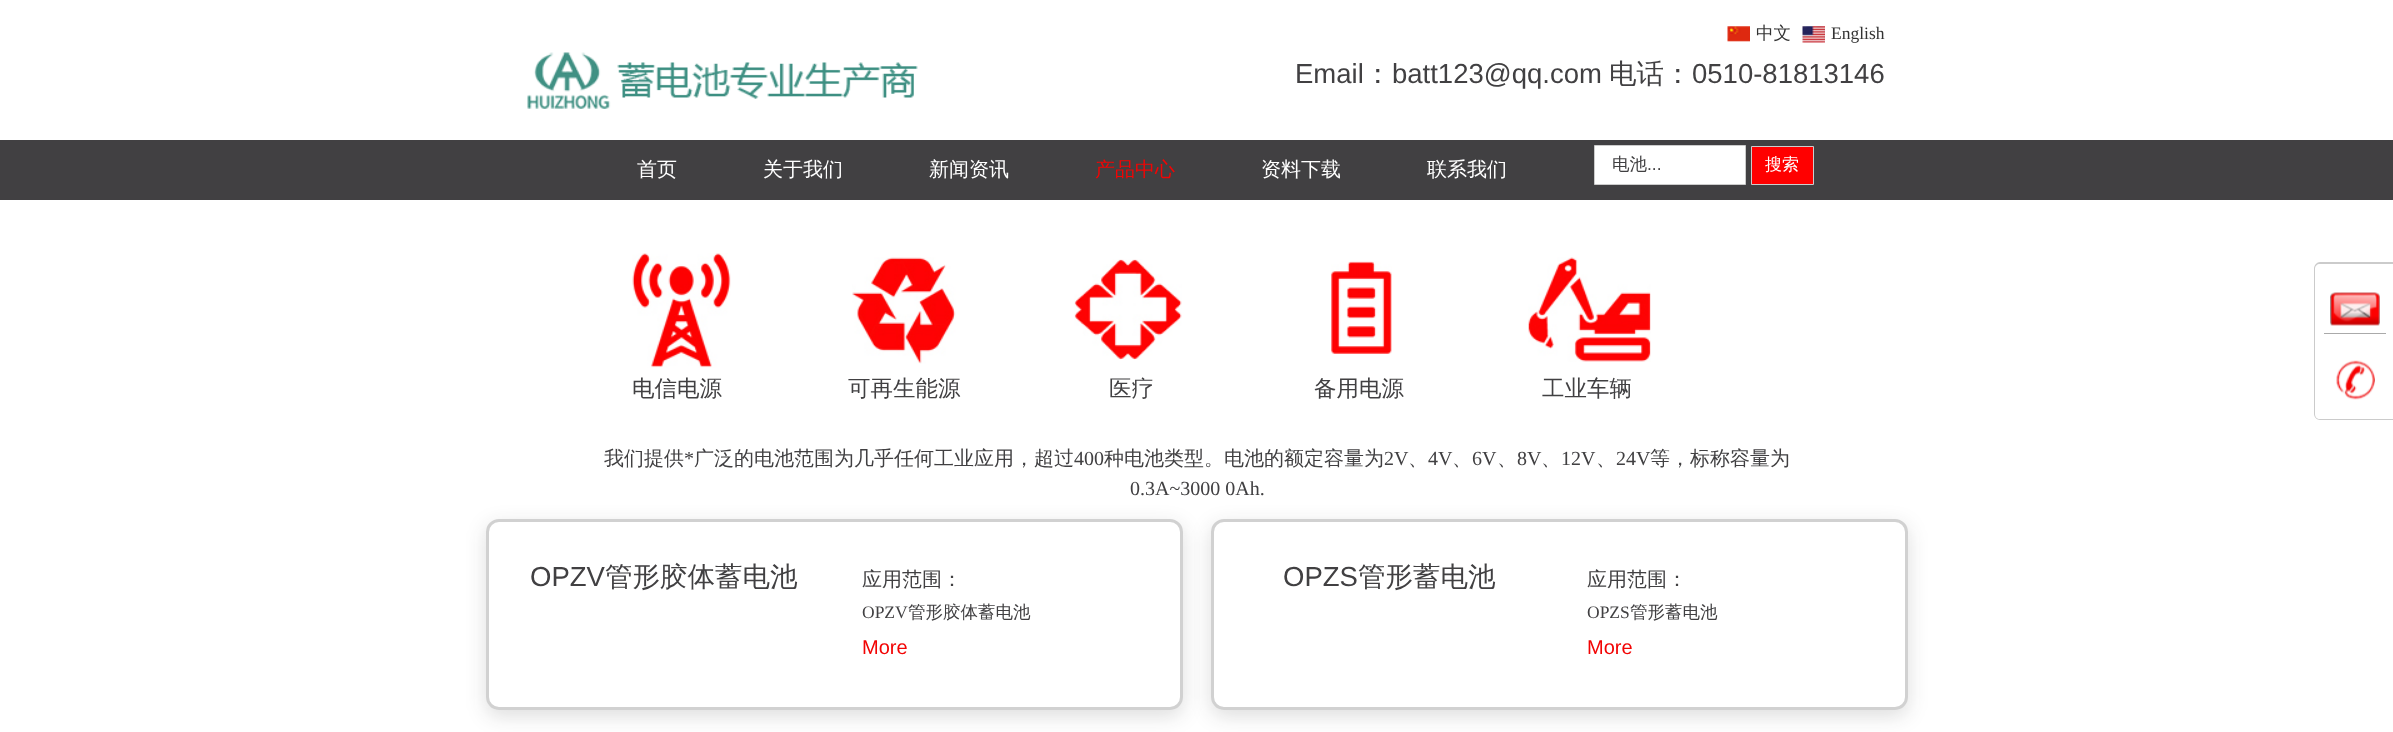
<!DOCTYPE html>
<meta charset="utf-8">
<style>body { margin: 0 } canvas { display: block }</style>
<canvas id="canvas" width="2393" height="732"></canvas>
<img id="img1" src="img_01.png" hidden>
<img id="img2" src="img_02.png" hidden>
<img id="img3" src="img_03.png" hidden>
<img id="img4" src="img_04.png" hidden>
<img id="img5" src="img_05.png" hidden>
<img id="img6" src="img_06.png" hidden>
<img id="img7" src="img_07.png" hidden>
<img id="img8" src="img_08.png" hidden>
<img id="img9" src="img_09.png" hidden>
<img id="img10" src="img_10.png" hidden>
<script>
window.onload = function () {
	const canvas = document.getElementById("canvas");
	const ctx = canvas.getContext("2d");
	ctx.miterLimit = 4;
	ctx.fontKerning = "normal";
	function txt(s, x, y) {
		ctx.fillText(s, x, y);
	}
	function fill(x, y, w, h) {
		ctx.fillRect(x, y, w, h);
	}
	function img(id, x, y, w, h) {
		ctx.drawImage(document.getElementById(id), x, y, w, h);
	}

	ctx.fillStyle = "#FFFFFF";
	fill(0, 0, 2393, 732);
	img("img1", 527, 52, 391, 57);
	img("img2", 1727, 26, 23, 16);
	img("img3", 1802, 26, 23, 17);
	ctx.fillStyle = "#414042";
	fill(0, 140, 2393, 60);
	ctx.fillStyle = "#FFFFFF";
	ctx.beginPath();
	ctx.rect(1594.5, 145.5, 151, 39);
	ctx.fill();
	ctx.strokeStyle = "#CCCCCC";
	ctx.stroke();
	ctx.fillStyle = "#FF0000";
	ctx.beginPath();
	ctx.rect(1751.5, 146.5, 62, 38);
	ctx.fill();
	ctx.stroke();
	ctx.fillStyle = "#CBCBCB";
	ctx.beginPath();
	ctx.moveTo(2320, 262);
	ctx.lineTo(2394, 262);
	ctx.lineTo(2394, 420);
	ctx.lineTo(2320, 420);
	ctx.bezierCurveTo(2317, 420, 2314, 417, 2314, 414);
	ctx.lineTo(2314, 269);
	ctx.bezierCurveTo(2314, 265, 2317, 262, 2320, 262);
	ctx.closePath();
	ctx.moveTo(2320, 264);
	ctx.lineTo(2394, 264);
	ctx.lineTo(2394, 419);
	ctx.lineTo(2320, 419);
	ctx.bezierCurveTo(2317, 419, 2315, 417, 2315, 414);
	ctx.lineTo(2315, 269);
	ctx.bezierCurveTo(2315, 266, 2317, 264, 2320, 264);
	ctx.closePath();
	ctx.fill("evenodd");
	ctx.fillStyle = "#AAAAAA";
	fill(2324, 333, 62, 1);
	img("img4", 2330, 292, 50, 34);
	img("img5", 2336, 360, 39, 40);
	img("img6", 632, 253, 99, 115);
	img("img7", 852, 257, 104, 107);
	img("img8", 1074, 259, 108, 101);
	img("img9", 1331, 261, 61, 93);
	img("img10", 1528, 257, 123, 105);
	ctx.save();
	ctx.beginPath();
	ctx.moveTo(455, 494);
	ctx.lineTo(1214, 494);
	ctx.lineTo(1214, 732);
	ctx.lineTo(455, 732);
	ctx.closePath();
	ctx.moveTo(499, 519);
	ctx.lineTo(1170, 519);
	ctx.bezierCurveTo(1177, 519, 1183, 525, 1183, 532);
	ctx.lineTo(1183, 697);
	ctx.bezierCurveTo(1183, 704, 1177, 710, 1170, 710);
	ctx.lineTo(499, 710);
	ctx.bezierCurveTo(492, 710, 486, 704, 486, 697);
	ctx.lineTo(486, 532);
	ctx.bezierCurveTo(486, 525, 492, 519, 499, 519);
	ctx.closePath();
	ctx.clip("evenodd");
	ctx.fillStyle = "rgba(24, 24, 24, 0.15)";
	ctx.filter = "blur(10px)";
	ctx.beginPath();
	ctx.roundRect(486, 525, 697, 191, 13);
	ctx.fill();
	ctx.filter = "none";
	ctx.restore();
	ctx.beginPath();
	ctx.roundRect(487.5, 520.5, 694, 188, 11.5);
	ctx.strokeStyle = "#D1D1D1";
	ctx.lineWidth = 3;
	ctx.stroke();
	ctx.save();
	ctx.beginPath();
	ctx.moveTo(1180, 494);
	ctx.lineTo(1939, 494);
	ctx.lineTo(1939, 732);
	ctx.lineTo(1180, 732);
	ctx.closePath();
	ctx.moveTo(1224, 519);
	ctx.lineTo(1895, 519);
	ctx.bezierCurveTo(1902, 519, 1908, 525, 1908, 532);
	ctx.lineTo(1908, 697);
	ctx.bezierCurveTo(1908, 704, 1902, 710, 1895, 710);
	ctx.lineTo(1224, 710);
	ctx.bezierCurveTo(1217, 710, 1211, 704, 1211, 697);
	ctx.lineTo(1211, 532);
	ctx.bezierCurveTo(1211, 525, 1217, 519, 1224, 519);
	ctx.closePath();
	ctx.clip("evenodd");
	ctx.fillStyle = "rgba(24, 24, 24, 0.15)";
	ctx.filter = "blur(10px)";
	ctx.beginPath();
	ctx.roundRect(1211, 525, 697, 191, 13);
	ctx.fill();
	ctx.filter = "none";
	ctx.restore();
	ctx.beginPath();
	ctx.roundRect(1212.5, 520.5, 694, 188, 11.5);
	ctx.stroke();
	ctx.font = "500 17.5px WenQuanYi Zen Hei";
	ctx.fillStyle = "#333333";
	txt("中文", 1756, 39);
	ctx.font = "17.5px Liberation Serif";
	txt("English", 1831, 39);
	ctx.font = "27.5px Liberation Sans";
	ctx.fillStyle = "#414042";
	txt("Email", 1295, 83);
	ctx.font = "500 27.5px WenQuanYi Zen Hei";
	txt("：", 1364, 83);
	ctx.font = "27.5px Liberation Sans";
	txt("batt123@qq.com", 1392, 83);
	ctx.font = "500 27.5px WenQuanYi Zen Hei";
	txt("电话：", 1609, 83);
	ctx.font = "27.5px Liberation Sans";
	txt("0510-81813146", 1692, 83);
	ctx.font = "500 20px WenQuanYi Zen Hei";
	ctx.fillStyle = "#FFFFFF";
	txt("首页", 637, 176);
	txt("关于我们", 763, 176);
	txt("新闻资讯", 929, 176);
	ctx.fillStyle = "#F20404";
	txt("产品中心", 1095, 176);
	ctx.fillStyle = "#FFFFFF";
	txt("资料下载", 1261, 176);
	txt("联系我们", 1427, 176);
	ctx.font = "500 17.5px WenQuanYi Zen Hei";
	ctx.fillStyle = "#414042";
	txt("电池", 1612, 170);
	ctx.font = "17.5px Liberation Sans";
	txt("...", 1647, 170);
	ctx.font = "500 17px WenQuanYi Zen Hei";
	ctx.fillStyle = "#FFFFFF";
	txt("搜索", 1765, 170);
	ctx.font = "500 22.5px WenQuanYi Zen Hei";
	ctx.fillStyle = "#414042";
	txt("电信电源", 632, 396);
	txt("可再生能源", 848, 396);
	txt("医疗", 1109, 396);
	txt("备用电源", 1314, 396);
	txt("工业车辆", 1542, 396);
	ctx.font = "500 20px WenQuanYi Zen Hei";
	txt("我们提供", 604, 465);
	ctx.font = "20px Liberation Serif";
	txt("*", 684, 465);
	ctx.font = "500 20px WenQuanYi Zen Hei";
	txt("广泛的电池范围为几乎任何工业应用，超过", 694, 465);
	ctx.font = "20px Liberation Serif";
	txt("400", 1074, 465);
	ctx.font = "500 20px WenQuanYi Zen Hei";
	txt("种电池类型。电池的额定容量为", 1104, 465);
	ctx.font = "20px Liberation Serif";
	txt("2V", 1384, 465);
	ctx.font = "500 20px WenQuanYi Zen Hei";
	txt("、", 1408, 465);
	ctx.font = "20px Liberation Serif";
	txt("4V", 1428, 465);
	ctx.font = "500 20px WenQuanYi Zen Hei";
	txt("、", 1452, 465);
	ctx.font = "20px Liberation Serif";
	txt("6V", 1472, 465);
	ctx.font = "500 20px WenQuanYi Zen Hei";
	txt("、", 1497, 465);
	ctx.font = "20px Liberation Serif";
	txt("8V", 1517, 465);
	ctx.font = "500 20px WenQuanYi Zen Hei";
	txt("、", 1541, 465);
	ctx.font = "20px Liberation Serif";
	txt("12V", 1561, 465);
	ctx.font = "500 20px WenQuanYi Zen Hei";
	txt("、", 1596, 465);
	ctx.font = "20px Liberation Serif";
	txt("24V", 1616, 465);
	ctx.font = "500 20px WenQuanYi Zen Hei";
	txt("等，标称容量为", 1650, 465);
	ctx.font = "20px Liberation Serif";
	txt("0.3A~3000 0Ah.", 1130, 495);
	ctx.font = "27.5px Liberation Sans";
	txt("OPZV", 530, 586);
	ctx.font = "500 27.5px WenQuanYi Zen Hei";
	txt("管形胶体蓄电池", 605, 586);
	ctx.font = "500 20px WenQuanYi Zen Hei";
	txt("应用范围：", 862, 586);
	ctx.font = "17.5px Liberation Serif";
	txt("OPZV", 862, 618);
	ctx.font = "500 17.5px WenQuanYi Zen Hei";
	txt("管形胶体蓄电池", 908, 618);
	ctx.font = "20px Liberation Sans";
	ctx.fillStyle = "#F20404";
	txt("More", 862, 654);
	ctx.font = "27.5px Liberation Sans";
	ctx.fillStyle = "#414042";
	txt("OPZS", 1283, 586);
	ctx.font = "500 27.5px WenQuanYi Zen Hei";
	txt("管形蓄电池", 1358, 586);
	ctx.font = "500 20px WenQuanYi Zen Hei";
	txt("应用范围：", 1587, 586);
	ctx.font = "17.5px Liberation Serif";
	txt("OPZS", 1587, 618);
	ctx.font = "500 17.5px WenQuanYi Zen Hei";
	txt("管形蓄电池", 1630, 618);
	ctx.font = "20px Liberation Sans";
	ctx.fillStyle = "#F20404";
	txt("More", 1587, 654);
};
</script>
